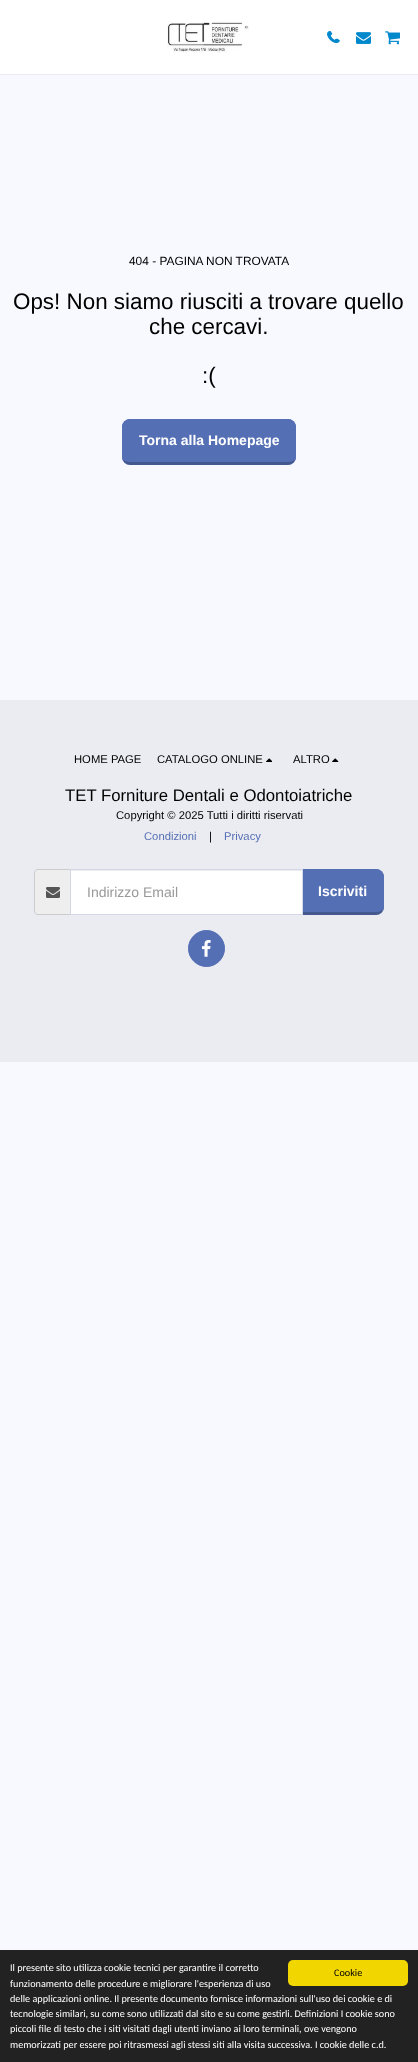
<!DOCTYPE html>
<meta charset="utf-8">
<style>body { margin: 0 } canvas { display: block }</style>
<canvas id="canvas" width="418" height="2062"></canvas>
<img id="img1" src="img_01.png" hidden>
<img id="img2" src="img_02.png" hidden>
<img id="img3" src="img_03.png" hidden>
<img id="img4" src="img_04.png" hidden>
<img id="img5" src="img_05.png" hidden>
<img id="img6" src="img_06.png" hidden>
<img id="img7" src="img_07.png" hidden>
<img id="img8" src="img_08.png" hidden>
<img id="img9" src="img_09.png" hidden>
<script>
window.onload = function () {
	const canvas = document.getElementById("canvas");
	const ctx = canvas.getContext("2d");
	ctx.miterLimit = 4;
	ctx.fontKerning = "normal";
	function txt(s, x, y) {
		ctx.fillText(s, x, y);
	}
	function fill(x, y, w, h) {
		ctx.fillRect(x, y, w, h);
	}
	function round(x, y, w, h, r) {
		ctx.beginPath();
		ctx.roundRect(x, y, w, h, r);
		ctx.fill();
	}
	function img(id, x, y, w, h) {
		ctx.drawImage(document.getElementById(id), x, y, w, h);
	}

	ctx.fillStyle = "#F8F8FF";
	fill(0, 0, 418, 2062);
	ctx.fillStyle = "#FFFFFF";
	fill(0, 0, 418, 74);
	ctx.fillStyle = "#EBECF1";
	fill(0, 74, 418, 1);
	img("img1", 167, 22, 82, 31);
	img("img2", 328, 31, 12, 12);
	img("img3", 327, 31, 12, 12);
	img("img4", 356, 32, 15, 12);
	img("img5", 385, 31, 15, 14);
	ctx.fillStyle = "#556FB5";
	round(122, 419, 174, 46, 8);
	ctx.beginPath();
	ctx.moveTo(130, 419);
	ctx.bezierCurveTo(128, 419, 126, 420, 124, 422);
	ctx.lineTo(125, 422);
	ctx.bezierCurveTo(126, 421, 128, 420, 129, 420);
	ctx.lineTo(289, 420);
	ctx.lineTo(293, 422);
	ctx.lineTo(294, 422);
	ctx.bezierCurveTo(292, 420, 290, 419, 288, 419);
	ctx.closePath();
	ctx.fill();
	ctx.beginPath();
	ctx.moveTo(296, 457);
	ctx.lineTo(296, 427);
	ctx.bezierCurveTo(296, 425, 295, 423, 293.5, 421.5);
	ctx.lineTo(293, 422);
	ctx.bezierCurveTo(294, 423, 295, 425, 295, 427);
	ctx.lineTo(295, 457);
	ctx.bezierCurveTo(295, 458, 294.5, 459, 294, 459.5);
	ctx.lineTo(294.5, 461);
	ctx.bezierCurveTo(295.5, 460, 296, 458.5, 296, 457);
	ctx.closePath();
	ctx.fill();
	ctx.fillStyle = "rgba(0, 0, 0, 0.2)";
	ctx.beginPath();
	ctx.moveTo(130, 465);
	ctx.lineTo(288, 465);
	ctx.bezierCurveTo(291, 465, 293, 463, 295, 461);
	ctx.lineTo(294, 460);
	ctx.bezierCurveTo(293, 461, 291, 462, 288, 462);
	ctx.lineTo(130, 462);
	ctx.bezierCurveTo(127, 462, 125, 461, 124, 460);
	ctx.lineTo(123, 461);
	ctx.bezierCurveTo(125, 463, 127, 465, 130, 465);
	ctx.closePath();
	ctx.fill();
	ctx.fillStyle = "#556FB5";
	ctx.beginPath();
	ctx.moveTo(122, 427);
	ctx.lineTo(122, 457);
	ctx.bezierCurveTo(122, 458.5, 122.5, 460, 123.5, 461);
	ctx.lineTo(124, 459.5);
	ctx.bezierCurveTo(123.5, 459, 123, 458, 123, 457);
	ctx.lineTo(123, 427);
	ctx.bezierCurveTo(123, 425, 124, 423, 125, 422);
	ctx.lineTo(124.5, 421.5);
	ctx.bezierCurveTo(123, 423, 122, 425, 122, 427);
	ctx.closePath();
	ctx.fill();
	ctx.fillStyle = "#EBECF1";
	fill(0, 700, 418, 362);
	img("img6", 266, 758, 6, 4);
	img("img7", 332, 758, 7, 4);
	ctx.fillStyle = "#EEEEEE";
	ctx.beginPath();
	ctx.roundRect(35, 870, 35, 44, [3, 0, 0, 3]);
	ctx.fill();
	ctx.fillStyle = "#CCCCCC";
	ctx.beginPath();
	ctx.moveTo(38, 869);
	ctx.lineTo(70, 869);
	ctx.lineTo(70, 915);
	ctx.lineTo(38, 915);
	ctx.bezierCurveTo(36, 915, 34, 913, 34, 911);
	ctx.lineTo(34, 873);
	ctx.bezierCurveTo(34, 871, 36, 869, 38, 869);
	ctx.closePath();
	ctx.moveTo(38, 870);
	ctx.lineTo(70, 870);
	ctx.lineTo(70, 914);
	ctx.lineTo(38, 914);
	ctx.bezierCurveTo(36, 914, 35, 913, 35, 911);
	ctx.lineTo(35, 873);
	ctx.bezierCurveTo(35, 871, 36, 870, 38, 870);
	ctx.closePath();
	ctx.fill("evenodd");
	img("img8", 46, 887, 14, 11);
	ctx.fillStyle = "#FFFFFF";
	fill(71, 871, 231, 43);
	ctx.fillStyle = "#ECECEC";
	fill(71, 870, 231, 1);
	ctx.fillStyle = "#556FB5";
	ctx.beginPath();
	ctx.roundRect(302, 869, 82, 46, [0, 8, 8, 0]);
	ctx.fill();
	ctx.beginPath();
	ctx.moveTo(302, 869);
	ctx.lineTo(303, 870);
	ctx.lineTo(376, 870);
	ctx.bezierCurveTo(378, 870, 380, 871, 381, 872);
	ctx.lineTo(382, 872);
	ctx.bezierCurveTo(380, 870, 378, 869, 376, 869);
	ctx.closePath();
	ctx.fill();
	ctx.beginPath();
	ctx.moveTo(384, 907);
	ctx.lineTo(384, 877);
	ctx.bezierCurveTo(384, 875, 383, 873, 381.5, 871.5);
	ctx.lineTo(381, 872);
	ctx.bezierCurveTo(382, 873, 383, 875, 383, 877);
	ctx.lineTo(383, 907);
	ctx.bezierCurveTo(383, 908, 382.5, 909, 382, 909.5);
	ctx.lineTo(382.5, 911);
	ctx.bezierCurveTo(383.5, 910, 384, 908.5, 384, 907);
	ctx.closePath();
	ctx.fill();
	ctx.fillStyle = "rgba(0, 0, 0, 0.2)";
	ctx.beginPath();
	ctx.moveTo(376, 915);
	ctx.bezierCurveTo(379, 915, 381, 913, 383, 911);
	ctx.lineTo(382, 910);
	ctx.bezierCurveTo(381, 911, 379, 912, 376, 912);
	ctx.lineTo(303, 912);
	ctx.lineTo(302, 915);
	ctx.closePath();
	ctx.fill();
	ctx.strokeStyle = "#D4D7E5";
	ctx.strokeRect(70.5, 869.5, 232, 45);
	ctx.fillStyle = "#556FB5";
	ctx.beginPath();
	ctx.arc(206.5, 948.5, 18, 0, Math.PI * 2);
	ctx.fill();
	ctx.strokeStyle = "#556FB5";
	ctx.stroke();
	img("img9", 201, 940, 10, 17);
	ctx.fillStyle = "#222222";
	fill(0, 1950, 418, 112);
	ctx.fillStyle = "#F1D600";
	round(288, 1960, 120, 26, 5);
	ctx.font = "11.9px Liberation Sans";
	ctx.fillStyle = "#000000";
	txt("404 - PAGINA NON TROVATA", 129, 265);
	ctx.font = "22.4px Liberation Sans";
	txt("Ops! Non siamo riusciti a trovare quello", 13, 309);
	txt("che cercavi.", 149, 334);
	txt(":(", 202, 383);
	ctx.font = "bold 14px Liberation Sans";
	ctx.fillStyle = "#FFFFFF";
	txt("Torna alla Homepage", 139, 445);
	ctx.font = "11.25px Liberation Sans";
	ctx.fillStyle = "#000000";
	txt("HOME PAGE", 74, 763);
	txt("CATALOGO ONLINE", 157, 763);
	txt("ALTRO", 293, 763);
	ctx.font = "16.75px Liberation Sans";
	txt("TET Forniture Dentali e Odontoiatriche", 65, 801);
	ctx.font = "11.25px Liberation Sans";
	txt("Copyright © 2025 Tutti i diritti riservati", 116, 819);
	ctx.fillStyle = "#556FB5";
	txt("Condizioni", 144, 840);
	ctx.fillStyle = "#000000";
	txt("|", 209, 840);
	ctx.fillStyle = "#556FB5";
	txt("Privacy", 224, 840);
	ctx.font = "14px Liberation Sans";
	ctx.fillStyle = "#999999";
	txt("Indirizzo Email", 87, 897);
	ctx.font = "bold 14px Liberation Sans";
	ctx.fillStyle = "#FFFFFF";
	txt("Iscriviti", 318, 896);
	ctx.font = "10.2px Carlito";
	txt("Il presente sito utilizza cookie tecnici per garantire il corretto", 10, 1971);
	txt("funzionamento delle procedure e migliorare l'esperienza di uso", 10, 1987);
	txt("delle applicazioni online. Il presente documento fornisce informazioni sull'uso dei cookie e di", 10, 2002);
	txt("tecnologie similari, su come sono utilizzati dal sito e su come gestirli. Definizioni I cookie sono", 10, 2017);
	txt("piccoli file di testo che i siti visitati dagli utenti inviano ai loro terminali, ove vengono", 10, 2032);
	txt("memorizzati per essere poi ritrasmessi agli stessi siti alla visita successiva. I cookie delle c.d.", 10, 2048);
	ctx.fillStyle = "#000000";
	txt("Cookie", 334, 1976);
};
</script>
